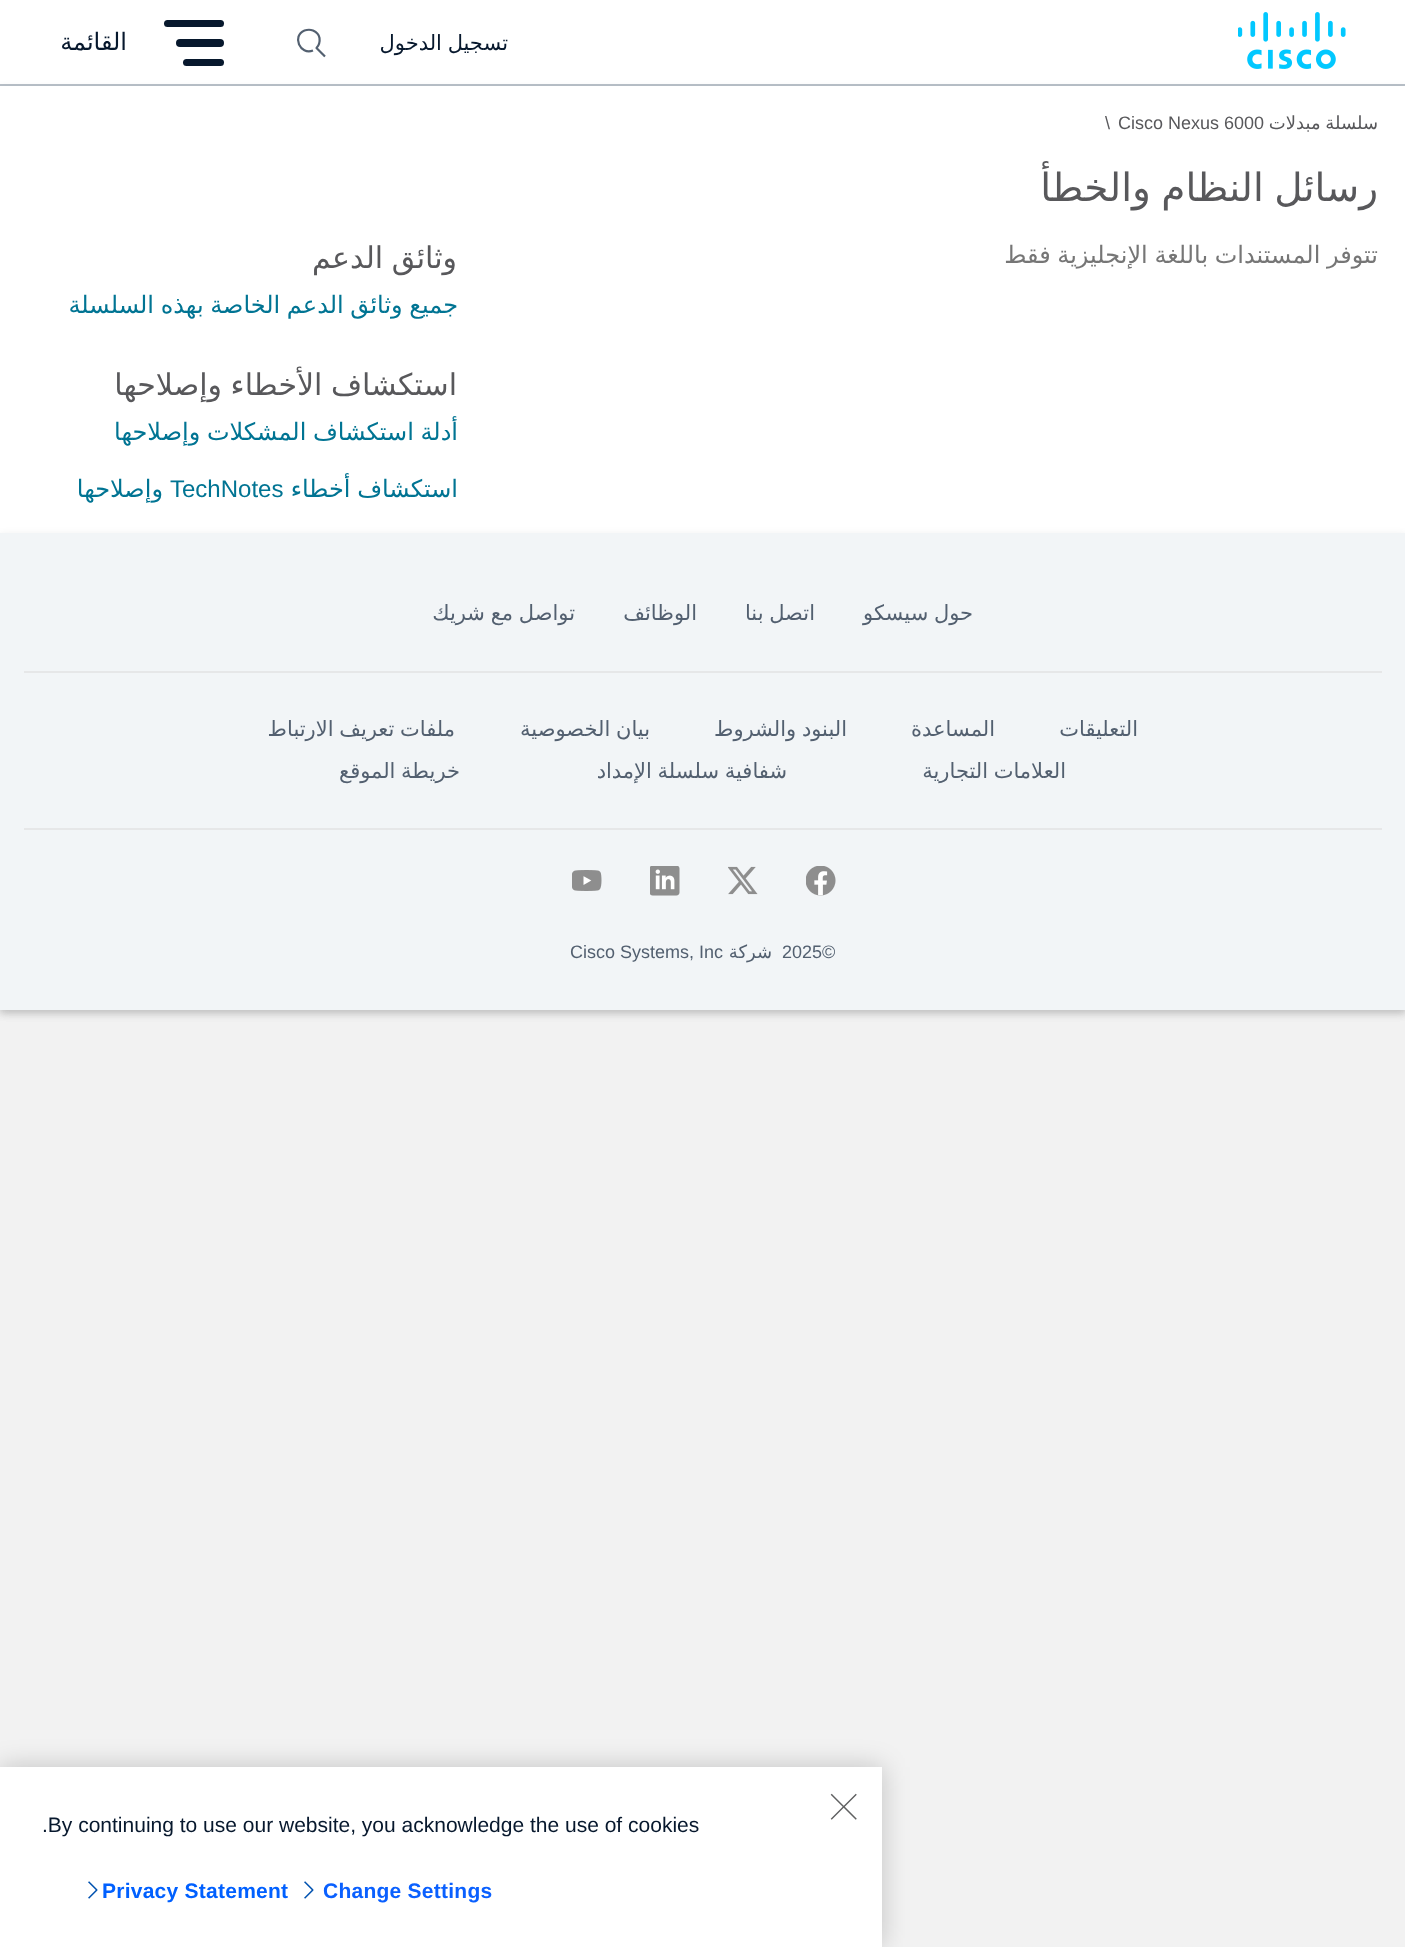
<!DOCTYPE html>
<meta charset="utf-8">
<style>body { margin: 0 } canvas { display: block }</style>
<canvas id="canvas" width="1405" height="1947"></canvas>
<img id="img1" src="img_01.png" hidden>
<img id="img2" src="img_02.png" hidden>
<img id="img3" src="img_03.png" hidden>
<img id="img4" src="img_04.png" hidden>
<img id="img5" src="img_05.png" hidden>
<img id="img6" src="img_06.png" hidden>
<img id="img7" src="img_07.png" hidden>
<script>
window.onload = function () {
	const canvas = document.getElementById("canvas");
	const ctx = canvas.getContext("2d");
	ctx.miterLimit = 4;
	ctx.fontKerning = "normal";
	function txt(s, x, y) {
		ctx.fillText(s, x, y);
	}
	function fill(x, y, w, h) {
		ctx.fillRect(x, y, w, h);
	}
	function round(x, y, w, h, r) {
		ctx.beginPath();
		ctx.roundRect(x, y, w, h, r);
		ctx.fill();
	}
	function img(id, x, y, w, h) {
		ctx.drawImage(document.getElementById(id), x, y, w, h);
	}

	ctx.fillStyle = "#F2F2F2";
	fill(0, 0, 1405, 1947);
	ctx.fillStyle = "#FFFFFF";
	fill(0, 0, 1405, 84);
	ctx.fillStyle = "#B9C1C9";
	fill(0, 84, 1405, 2);
	img("img1", 1238, 12, 108, 57);
	ctx.beginPath();
	ctx.moveTo(313, 50.5);
	ctx.bezierCurveTo(300, 55.5, 291.5, 36, 304.5, 30.5);
	ctx.bezierCurveTo(307.5, 29.5, 310.5, 29.5, 313, 30.5);
	ctx.bezierCurveTo(316.5, 32, 319, 35, 319.5, 38);
	ctx.bezierCurveTo(320, 42, 319, 45.5, 316.5, 48);
	ctx.lineTo(325, 56.5);
	ctx.strokeStyle = "#536070";
	ctx.lineWidth = 2.2;
	ctx.lineJoin = "round";
	ctx.stroke();
	ctx.fillStyle = "#07182D";
	round(164, 20, 60, 7, 3.5);
	round(176, 39, 48, 8, 4);
	round(183, 59, 41, 7, 3.5);
	ctx.fillStyle = "rgba(0, 0, 0, 0.12)";
	ctx.filter = "blur(4px)";
	ctx.beginPath();
	ctx.rect(0, 89, 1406, 924);
	ctx.fill();
	ctx.filter = "none";
	ctx.fillStyle = "#FFFFFF";
	fill(0, 86, 1405, 447);
	ctx.fillStyle = "#F2F5F7";
	fill(0, 533, 1405, 477);
	ctx.save();
	ctx.beginPath();
	ctx.moveTo(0, 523);
	ctx.lineTo(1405, 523);
	ctx.lineTo(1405, 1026);
	ctx.lineTo(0, 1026);
	ctx.closePath();
	ctx.moveTo(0, 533);
	ctx.lineTo(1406, 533);
	ctx.lineTo(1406, 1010);
	ctx.lineTo(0, 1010);
	ctx.closePath();
	ctx.clip("evenodd");
	ctx.fillStyle = "rgba(0, 0, 0, 0.12)";
	ctx.filter = "blur(4px)";
	ctx.beginPath();
	ctx.rect(0, 536, 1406, 477);
	ctx.fill();
	ctx.filter = "none";
	ctx.restore();
	ctx.fillStyle = "#E6E7E8";
	fill(24, 671, 1358, 2);
	fill(24, 828, 1358, 2);
	img("img2", 806, 866, 30, 30);
	img("img3", 728, 866, 30, 29);
	img("img4", 650, 866, 30, 30);
	img("img5", 572, 870, 30, 21);
	ctx.fillStyle = "rgba(0, 0, 0, 0.2)";
	ctx.filter = "blur(13.5px)";
	ctx.beginPath();
	ctx.rect(0, 1767, 882, 180);
	ctx.fill();
	ctx.filter = "none";
	ctx.fillStyle = "#FFFFFF";
	fill(0, 1767, 882, 180);
	img("img6", 830, 1793, 27, 27);
	img("img7", 88, 1881, 10, 18);
	img("img7", 304, 1881, 10, 18);
	ctx.wordSpacing = "-1px";
	ctx.direction = "rtl";
	ctx.font = "21px DejaVu Sans";
	ctx.fillStyle = "#07182D";
	txt("تسجيل الدخول", 508, 50);
	ctx.wordSpacing = "0px";
	ctx.font = "24px DejaVu Sans";
	txt("القائمة", 127, 50);
	ctx.wordSpacing = "-1px";
	ctx.font = "18px DejaVu Sans";
	ctx.fillStyle = "#58585B";
	txt("سلسلة مبدلات", 1378, 129);
	ctx.wordSpacing = "0px";
	ctx.direction = "ltr";
	ctx.font = "18px Liberation Sans";
	txt("Cisco Nexus 6000", 1118, 129);
	txt("\\", 1105, 129);
	ctx.wordSpacing = "-2px";
	ctx.direction = "rtl";
	ctx.font = "39px DejaVu Sans";
	txt("رسائل النظام والخطأ", 1378, 201);
	ctx.wordSpacing = "-1px";
	ctx.font = "24px DejaVu Sans";
	ctx.fillStyle = "#767676";
	txt("تتوفر المستندات باللغة الإنجليزية فقط", 1378, 263);
	ctx.font = "30px DejaVu Sans";
	ctx.fillStyle = "#58585B";
	txt("وثائق الدعم", 457, 268);
	ctx.font = "24px DejaVu Sans";
	ctx.fillStyle = "#007493";
	txt("جميع وثائق الدعم الخاصة بهذه السلسلة", 458, 313);
	ctx.font = "30px DejaVu Sans";
	ctx.fillStyle = "#58585B";
	txt("استكشاف الأخطاء وإصلاحها", 457, 395);
	ctx.font = "24px DejaVu Sans";
	ctx.fillStyle = "#007493";
	txt("أدلة استكشاف المشكلات وإصلاحها", 458, 440);
	txt("استكشاف أخطاء", 458, 497);
	ctx.wordSpacing = "0px";
	ctx.direction = "ltr";
	ctx.font = "24px Liberation Sans";
	txt("TechNotes", 170, 497);
	ctx.direction = "rtl";
	ctx.font = "24px DejaVu Sans";
	txt("وإصلاحها", 163, 497);
	ctx.wordSpacing = "-1px";
	ctx.font = "21px DejaVu Sans";
	ctx.fillStyle = "#536070";
	txt("حول سيسكو", 973, 620);
	txt("اتصل بنا", 815, 620);
	ctx.wordSpacing = "0px";
	txt("الوظائف", 697, 620);
	ctx.wordSpacing = "-1px";
	txt("تواصل مع شريك", 575, 620);
	ctx.wordSpacing = "0px";
	txt("التعليقات", 1138, 736);
	txt("المساعدة", 995, 736);
	ctx.wordSpacing = "-1px";
	txt("البنود والشروط", 847, 736);
	txt("بيان الخصوصية", 650, 736);
	txt("ملفات تعريف الارتباط", 455, 736);
	txt("العلامات التجارية", 1066, 778);
	txt("شفافية سلسلة الإمداد", 787, 778);
	txt("خريطة الموقع", 460, 778);
	ctx.wordSpacing = "0px";
	ctx.direction = "ltr";
	ctx.font = "18px Liberation Sans";
	txt("©", 822, 958);
	txt("2025", 782, 958);
	ctx.direction = "rtl";
	ctx.font = "18px DejaVu Sans";
	txt("شركة", 772, 958);
	ctx.direction = "ltr";
	ctx.font = "18px Liberation Sans";
	txt("Cisco Systems, Inc", 570, 958);
	ctx.font = "21px Liberation Sans";
	ctx.fillStyle = "#07182D";
	txt(".By continuing to use our website, you acknowledge the use of cookies", 42, 1832);
	ctx.letterSpacing = "0.25px";
	ctx.font = "bold 21px Liberation Sans";
	ctx.fillStyle = "#0A60FF";
	txt("Change Settings", 323, 1898);
	ctx.fillStyle = "#0060FF";
	txt("Privacy Statement", 102, 1898);
};
</script>
